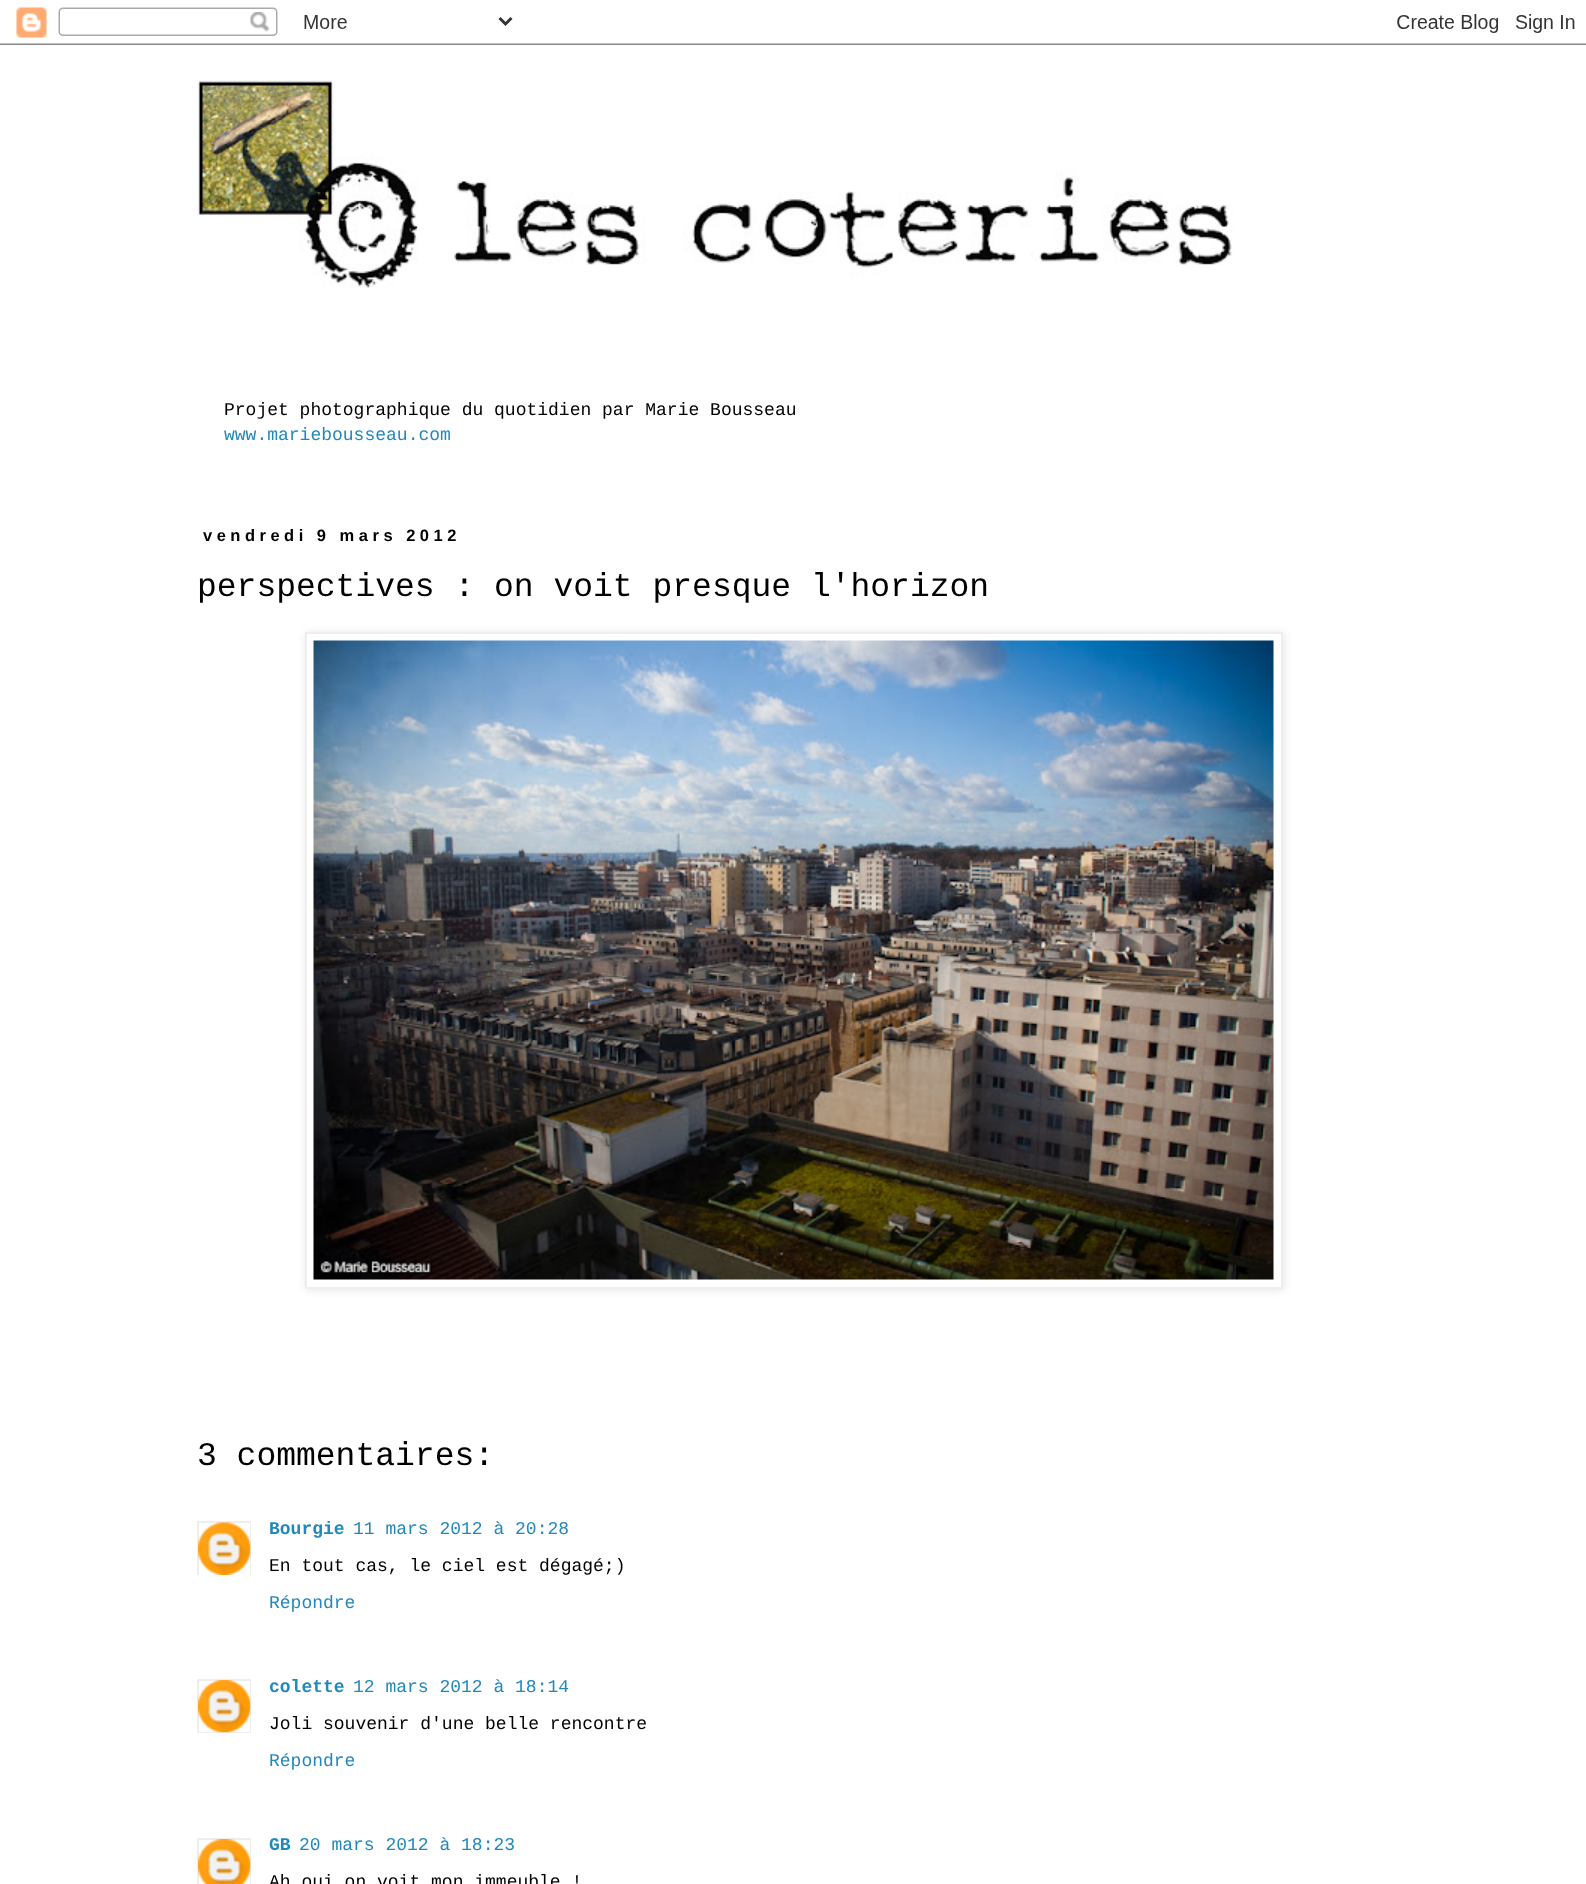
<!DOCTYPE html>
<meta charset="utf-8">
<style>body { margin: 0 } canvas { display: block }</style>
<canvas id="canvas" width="1586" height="1884"></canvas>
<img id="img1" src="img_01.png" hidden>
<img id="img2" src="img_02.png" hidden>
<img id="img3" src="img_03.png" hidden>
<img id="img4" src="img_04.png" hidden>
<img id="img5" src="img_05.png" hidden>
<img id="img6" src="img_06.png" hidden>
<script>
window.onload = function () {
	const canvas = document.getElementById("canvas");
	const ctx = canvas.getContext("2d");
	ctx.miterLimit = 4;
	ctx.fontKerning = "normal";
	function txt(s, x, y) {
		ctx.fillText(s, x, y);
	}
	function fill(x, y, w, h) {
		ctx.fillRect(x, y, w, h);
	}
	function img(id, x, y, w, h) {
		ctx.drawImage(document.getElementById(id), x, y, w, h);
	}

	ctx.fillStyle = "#FFFFFF";
	fill(0, 0, 1586, 1884);
	img("img1", 0, 7, 1586, 38);
	img("img2", 194, 80, 1039, 209);
	ctx.fillStyle = "rgba(0, 0, 0, 0.1)";
	ctx.filter = "blur(4px)";
	ctx.beginPath();
	ctx.rect(306, 633, 978, 657);
	ctx.fill();
	ctx.filter = "none";
	ctx.fillStyle = "#FFFFFF";
	ctx.beginPath();
	ctx.rect(306, 633, 976, 655);
	ctx.fill();
	ctx.strokeStyle = "#EEEEEE";
	ctx.lineWidth = 2;
	ctx.stroke();
	img("img3", 313, 640, 961, 640);
	ctx.save();
	ctx.beginPath();
	ctx.rect(197, 1521, 54, 54);
	ctx.clip();
	ctx.strokeRect(198, 1522, 53, 54);
	ctx.restore();
	img("img4", 198, 1522, 53, 53);
	ctx.save();
	ctx.beginPath();
	ctx.rect(197, 1679, 54, 54);
	ctx.clip();
	ctx.strokeRect(198, 1680, 53, 53);
	ctx.restore();
	img("img5", 198, 1680, 53, 53);
	ctx.save();
	ctx.beginPath();
	ctx.rect(197, 1838, 54, 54);
	ctx.clip();
	ctx.strokeRect(198, 1839, 53, 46);
	ctx.restore();
	img("img6", 198, 1839, 53, 45);
	ctx.font = "18px Liberation Mono";
	ctx.fillStyle = "#000000";
	txt("Projet photographique du quotidien par Marie Bousseau", 224, 415);
	ctx.fillStyle = "#2288BB";
	txt("www.mariebousseau.com", 224, 440);
	ctx.letterSpacing = "4.5px";
	ctx.font = "bold 16.5px Liberation Sans";
	ctx.fillStyle = "#000000";
	txt("vendredi 9 mars 2012", 203, 541);
	ctx.letterSpacing = "0px";
	ctx.font = "33px Liberation Mono";
	txt("perspectives : on voit presque l'horizon", 197, 596);
	txt("3 commentaires:", 197, 1465);
	ctx.font = "bold 18px Liberation Mono";
	ctx.fillStyle = "#2288BB";
	txt("Bourgie", 269, 1534);
	ctx.font = "18px Liberation Mono";
	txt("11 mars 2012 à 20:28", 353, 1534);
	ctx.fillStyle = "#000000";
	txt("En tout cas, le ciel est dégagé;)", 269, 1571);
	ctx.fillStyle = "#2288BB";
	txt("Répondre", 269, 1608);
	ctx.font = "bold 18px Liberation Mono";
	txt("colette", 269, 1692);
	ctx.font = "18px Liberation Mono";
	txt("12 mars 2012 à 18:14", 353, 1692);
	ctx.fillStyle = "#000000";
	txt("Joli souvenir d'une belle rencontre", 269, 1729);
	ctx.fillStyle = "#2288BB";
	txt("Répondre", 269, 1766);
	ctx.font = "bold 18px Liberation Mono";
	txt("GB", 269, 1850);
	ctx.font = "18px Liberation Mono";
	txt("20 mars 2012 à 18:23", 299, 1850);
	ctx.fillStyle = "#000000";
	txt("Ah oui on voit mon immeuble !", 269, 1887);
};
</script>
